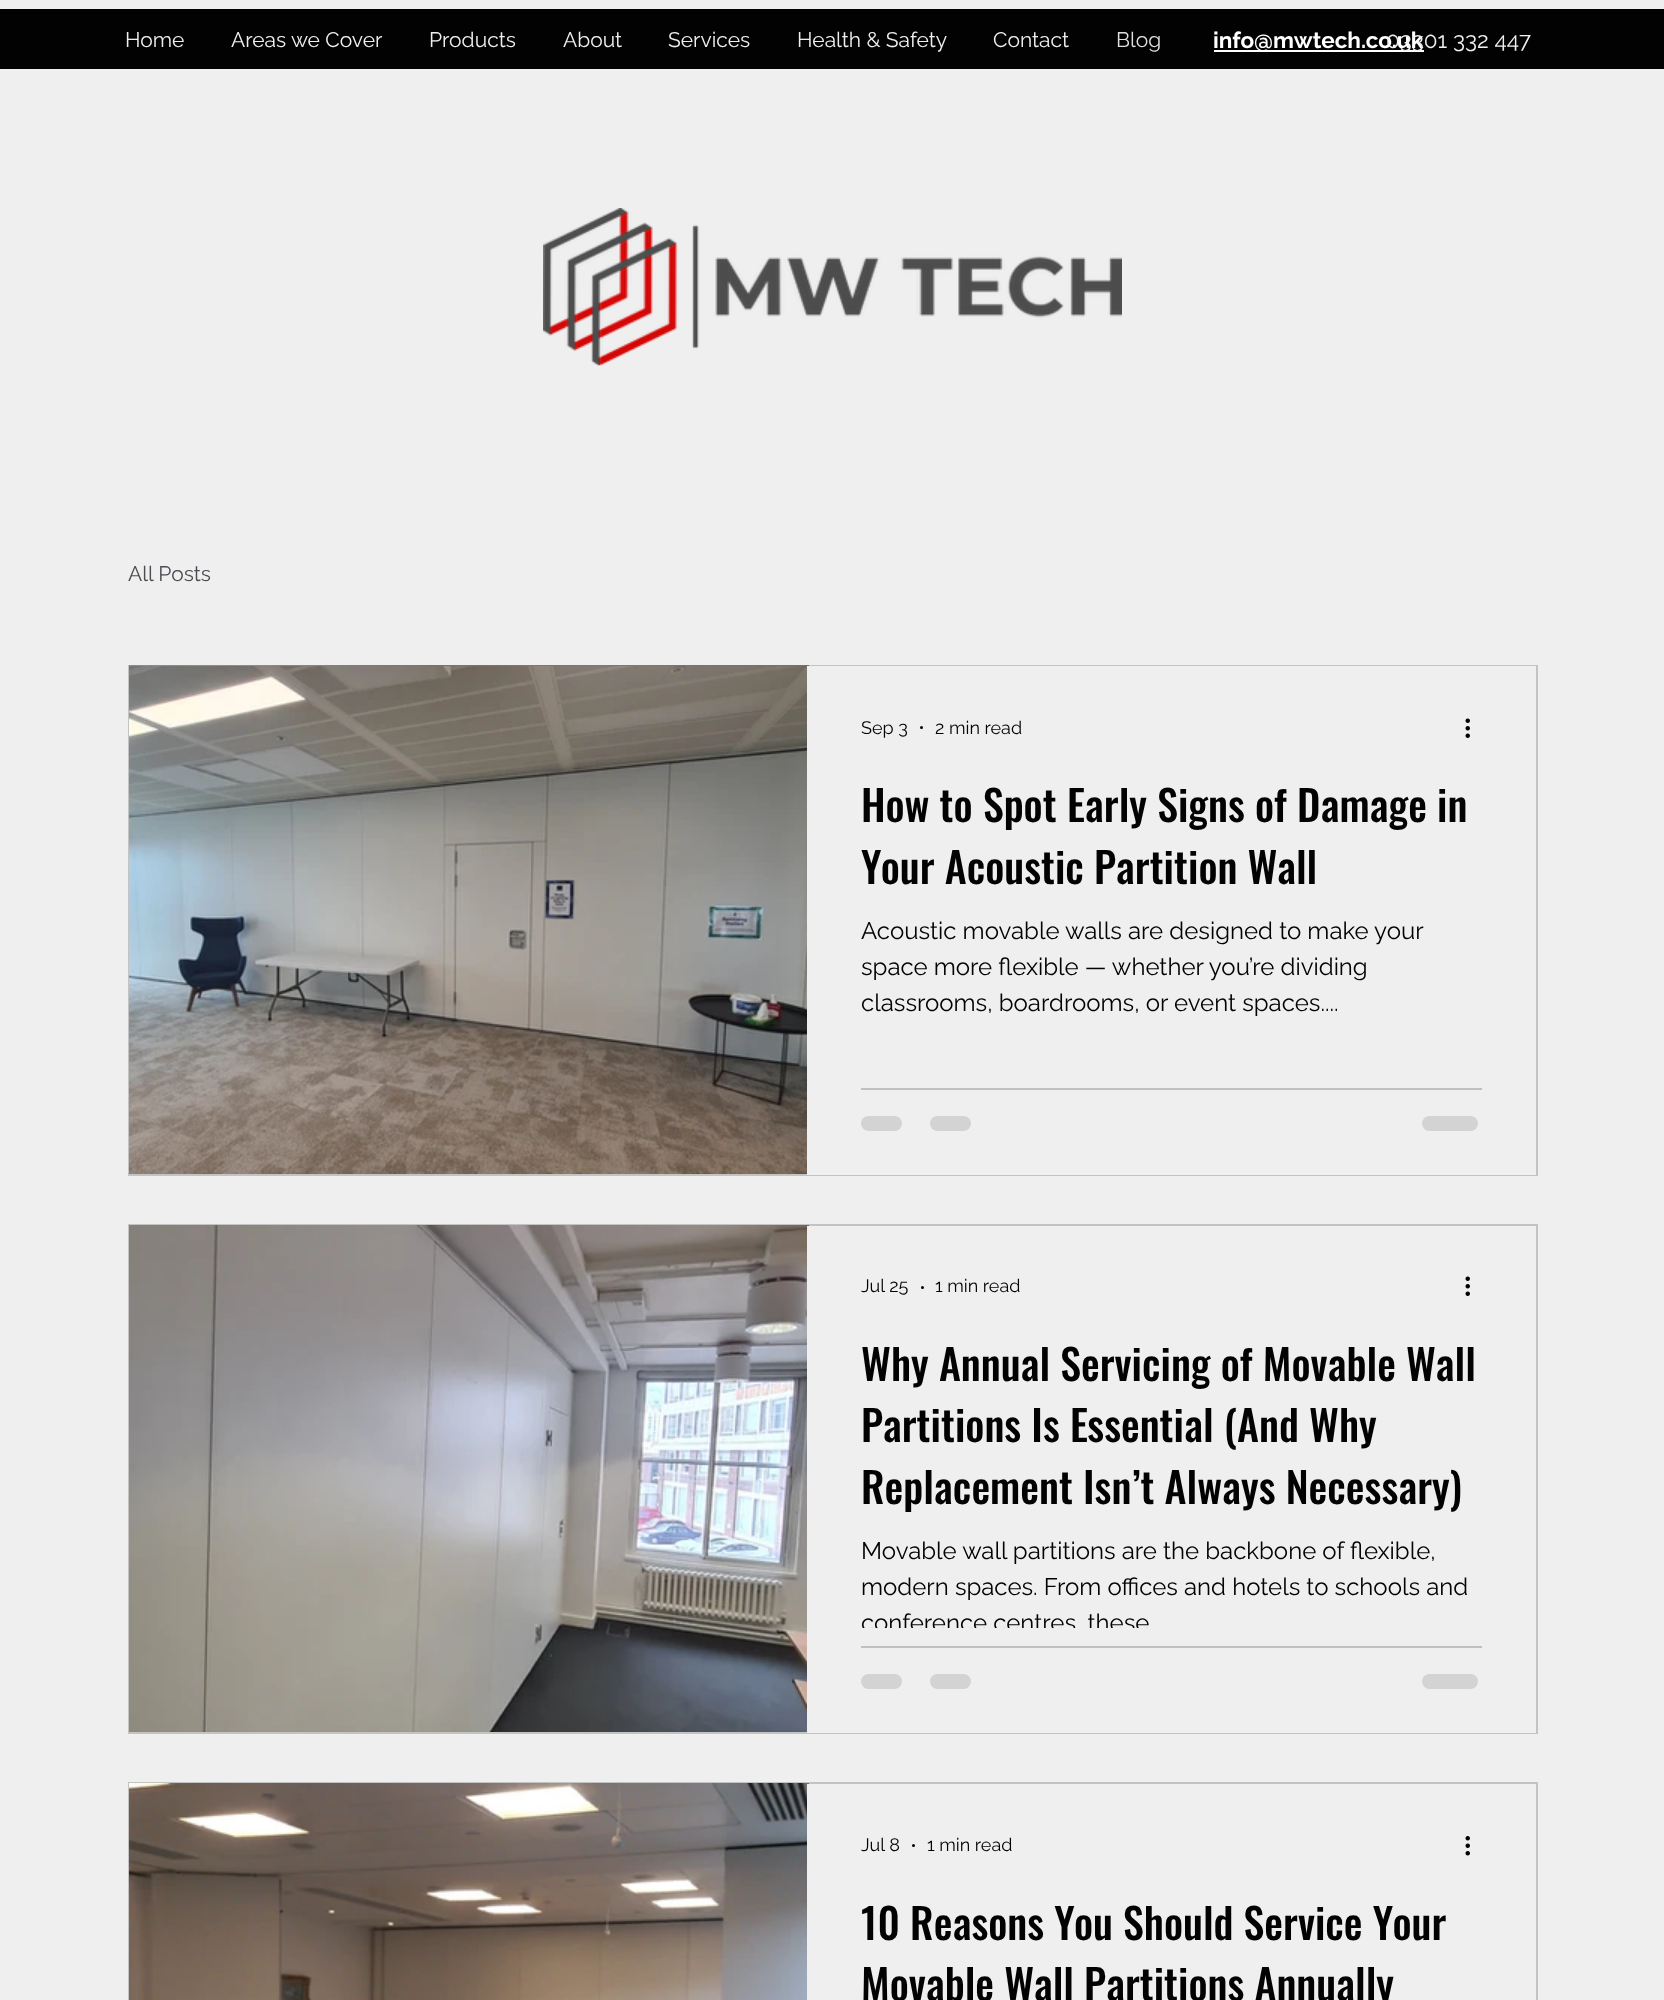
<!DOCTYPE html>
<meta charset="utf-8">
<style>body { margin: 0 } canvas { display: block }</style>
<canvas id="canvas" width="1664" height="2000"></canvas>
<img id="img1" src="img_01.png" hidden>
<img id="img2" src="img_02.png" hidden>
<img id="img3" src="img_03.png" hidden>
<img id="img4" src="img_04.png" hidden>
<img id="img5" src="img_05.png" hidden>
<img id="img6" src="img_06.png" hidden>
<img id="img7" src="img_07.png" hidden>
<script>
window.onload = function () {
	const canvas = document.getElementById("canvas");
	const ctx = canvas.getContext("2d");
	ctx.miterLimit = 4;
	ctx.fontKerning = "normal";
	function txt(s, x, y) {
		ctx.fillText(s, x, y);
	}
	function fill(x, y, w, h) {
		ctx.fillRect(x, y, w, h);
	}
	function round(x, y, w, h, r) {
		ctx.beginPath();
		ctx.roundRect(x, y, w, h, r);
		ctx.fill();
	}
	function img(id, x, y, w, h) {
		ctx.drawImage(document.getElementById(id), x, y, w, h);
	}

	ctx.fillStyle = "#EFEFEF";
	fill(0, 0, 1664, 2000);
	ctx.fillStyle = "#020202";
	fill(0, 9, 1664, 60);
	ctx.fillStyle = "#FFFFFF";
	fill(1214, 50, 210, 2);
	img("img1", 543, 208, 579, 158);
	ctx.strokeStyle = "#C3C3C3";
	ctx.lineWidth = 2;
	ctx.strokeRect(129, 666, 1408, 509);
	img("img2", 129, 665, 680, 1);
	img("img3", 129, 666, 678, 508);
	ctx.fillStyle = "#EFEFEF";
	fill(807, 666, 729, 509);
	ctx.fillStyle = "#020202";
	ctx.beginPath();
	ctx.arc(921.5, 727.5, 1.5, 0, Math.PI * 2);
	ctx.fill();
	img("img4", 1465, 718, 5, 20);
	ctx.fillStyle = "#C0C0C0";
	fill(861, 1088, 621, 2);
	ctx.fillStyle = "#D3D3D3";
	round(861, 1116, 41, 15, 7.5);
	round(930, 1116, 41, 15, 7.5);
	round(1422, 1116, 56, 15, 7.5);
	ctx.strokeRect(129, 1225, 1408, 508);
	img("img5", 129, 1225, 680, 507);
	ctx.fillStyle = "#EFEFEF";
	fill(807, 1226, 729, 507);
	ctx.fillStyle = "#020202";
	ctx.beginPath();
	ctx.arc(922.5, 1287.5, 1.5, 0, Math.PI * 2);
	ctx.fill();
	img("img4", 1465, 1276, 5, 20);
	ctx.fillStyle = "#C0C0C0";
	fill(861, 1646, 621, 2);
	ctx.fillStyle = "#D3D3D3";
	round(861, 1674, 41, 15, 7.5);
	round(930, 1674, 41, 15, 7.5);
	round(1422, 1674, 56, 15, 7.5);
	ctx.strokeRect(129, 1783, 1408, 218);
	img("img6", 129, 1783, 680, 217);
	ctx.fillStyle = "#EFEFEF";
	fill(807, 1784, 2, 216);
	ctx.fillStyle = "#020202";
	ctx.beginPath();
	ctx.arc(913.5, 1845.5, 1.5, 0, Math.PI * 2);
	ctx.fill();
	img("img7", 1465, 1836, 5, 20);
	ctx.font = "21px Raleway";
	ctx.fillStyle = "#EFEFEF";
	txt("Home", 125, 47);
	txt("Areas we Cover", 231, 47);
	txt("Products", 429, 47);
	txt("About", 563, 47);
	txt("Services", 668, 47);
	txt("Health & Safety", 797, 47);
	txt("Contact", 993, 47);
	ctx.fillStyle = "#DFDFDF";
	txt("Blog", 1116, 47);
	ctx.font = "bold 22.5px Raleway";
	ctx.fillStyle = "#FFFFFF";
	txt("info@mwtech.co.uk", 1213, 48);
	ctx.font = "22.5px Raleway";
	ctx.fillStyle = "#EFEFEF";
	txt("03301 332 447", 1386, 48);
	ctx.font = "21px Raleway";
	ctx.fillStyle = "#4A4C52";
	txt("All Posts", 128, 581);
	ctx.font = "18px Raleway";
	ctx.fillStyle = "#020202";
	txt("Sep 3", 861, 734);
	txt("2 min read", 935, 734);
	ctx.font = "500 42px Oswald";
	txt("How to Spot Early Signs of Damage in", 861, 822);
	txt("Your Acoustic Partition Wall", 861, 884);
	ctx.font = "24px Raleway";
	txt("Acoustic movable walls are designed to make your", 861, 939);
	txt("space more flexible — whether you’re dividing", 861, 975);
	txt("classrooms, boardrooms, or event spaces....", 861, 1011);
	ctx.font = "18px Raleway";
	txt("Jul 25", 861, 1292);
	txt("1 min read", 935, 1292);
	ctx.font = "500 42px Oswald";
	txt("Why Annual Servicing of Movable Wall", 861, 1381);
	txt("Partitions Is Essential (And Why", 861, 1442);
	txt("Replacement Isn’t Always Necessary)", 861, 1504);
	ctx.font = "24px Raleway";
	txt("Movable wall partitions are the backbone of flexible,", 861, 1559);
	txt("modern spaces. From offices and hotels to schools and", 861, 1595);
	ctx.save();
	ctx.beginPath();
	ctx.rect(861, 1535, 621, 93);
	ctx.clip();
	txt("conference centres, these", 861, 1631);
	ctx.restore();
	ctx.font = "18px Raleway";
	txt("Jul 8", 861, 1851);
	txt("1 min read", 927, 1851);
	ctx.font = "500 42px Oswald";
	txt("10 Reasons You Should Service Your", 861, 1940);
	txt("Movable Wall Partitions Annually", 861, 2001);
};
</script>
